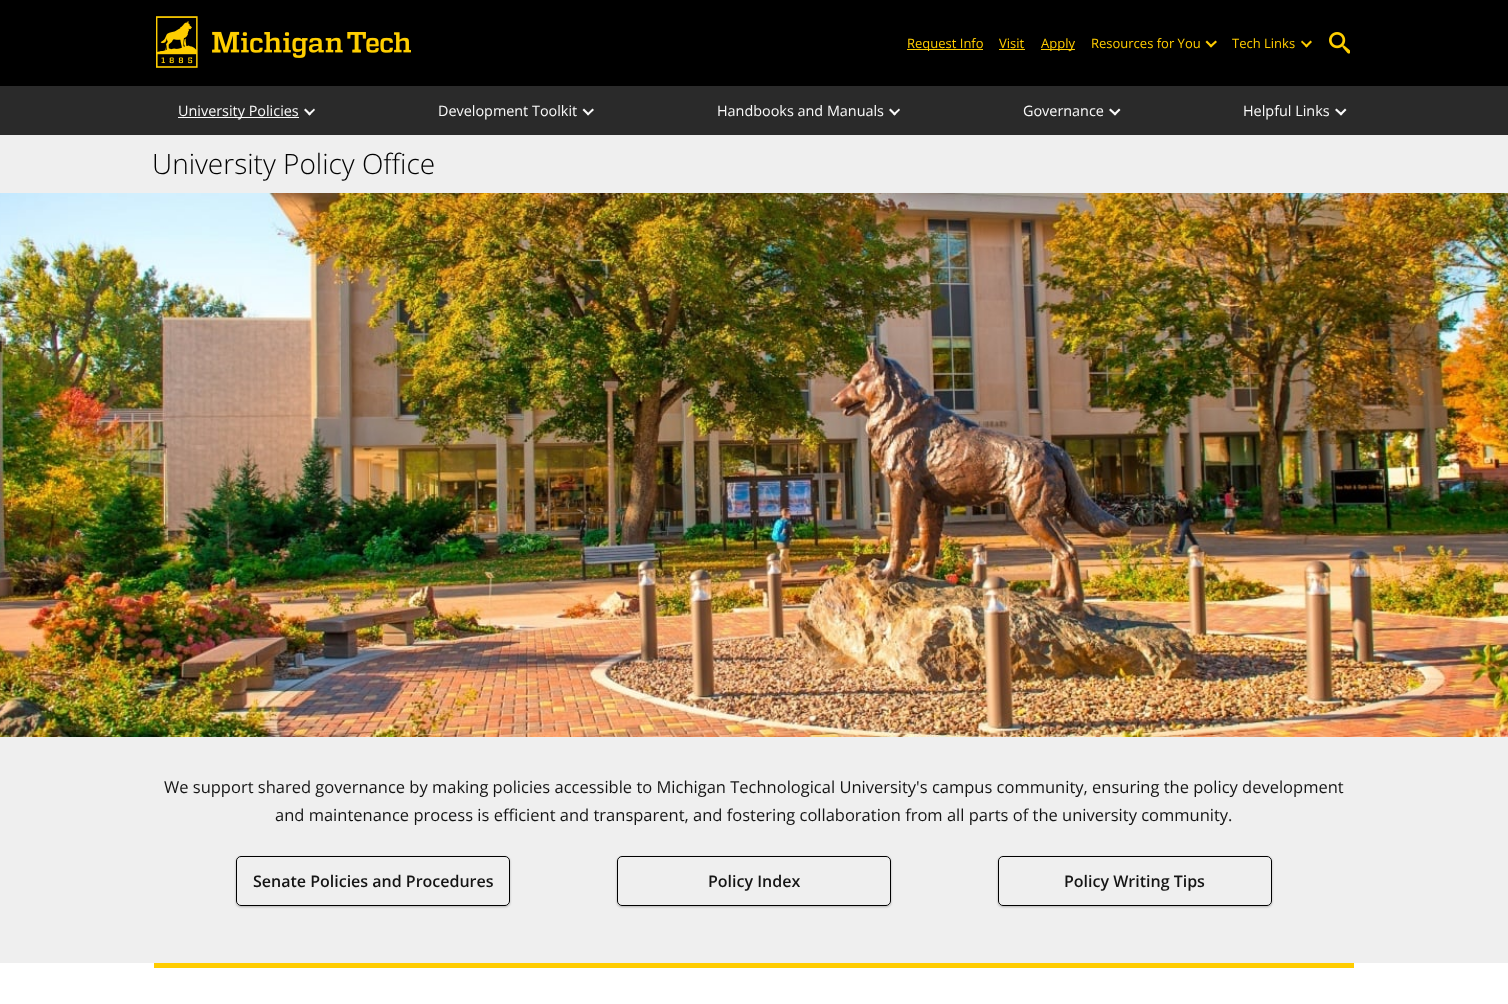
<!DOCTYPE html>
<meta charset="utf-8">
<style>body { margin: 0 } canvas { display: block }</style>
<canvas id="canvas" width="1508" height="1004"></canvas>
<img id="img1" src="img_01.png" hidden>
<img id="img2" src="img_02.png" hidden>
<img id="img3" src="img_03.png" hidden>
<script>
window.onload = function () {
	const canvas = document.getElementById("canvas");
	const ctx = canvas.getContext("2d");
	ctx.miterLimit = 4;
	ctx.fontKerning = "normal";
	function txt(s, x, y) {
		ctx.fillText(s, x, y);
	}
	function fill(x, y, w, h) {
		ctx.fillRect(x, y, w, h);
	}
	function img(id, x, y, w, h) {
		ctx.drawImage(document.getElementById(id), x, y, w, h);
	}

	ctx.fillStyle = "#FFFFFF";
	fill(0, 0, 1508, 1004);
	ctx.fillStyle = "#000000";
	fill(0, 0, 1508, 86);
	img("img1", 156, 16, 255, 52);
	ctx.fillStyle = "#FFCC00";
	fill(907, 49, 76, 1);
	fill(999, 49, 26, 1);
	fill(1041, 49, 34, 1);
	ctx.beginPath();
	ctx.moveTo(1215.5, 40.5);
	ctx.lineTo(1217, 42);
	ctx.lineTo(1211, 47.5);
	ctx.lineTo(1209.5, 46);
	ctx.closePath();
	ctx.fill();
	ctx.beginPath();
	ctx.moveTo(1207, 40.5);
	ctx.lineTo(1212.5, 46);
	ctx.lineTo(1211, 47.5);
	ctx.lineTo(1205.5, 42);
	ctx.closePath();
	ctx.fill();
	ctx.beginPath();
	ctx.moveTo(1310.5, 40.5);
	ctx.lineTo(1312, 42);
	ctx.lineTo(1306.5, 47.5);
	ctx.lineTo(1305, 46);
	ctx.closePath();
	ctx.fill();
	ctx.beginPath();
	ctx.moveTo(1302, 40.5);
	ctx.lineTo(1308, 46);
	ctx.lineTo(1306.5, 47.5);
	ctx.lineTo(1301, 42);
	ctx.closePath();
	ctx.fill();
	img("img2", 1329, 32, 21, 22);
	ctx.fillStyle = "#2A2A2A";
	fill(0, 86, 1508, 49);
	ctx.fillStyle = "#FAFAFA";
	fill(178, 117, 121, 1);
	ctx.beginPath();
	ctx.moveTo(314, 108.5);
	ctx.lineTo(315, 110);
	ctx.lineTo(309.5, 115.5);
	ctx.lineTo(308, 114);
	ctx.closePath();
	ctx.fill();
	ctx.beginPath();
	ctx.moveTo(305.5, 108.5);
	ctx.lineTo(311, 114);
	ctx.lineTo(309.5, 115.5);
	ctx.lineTo(304, 110);
	ctx.closePath();
	ctx.fill();
	ctx.beginPath();
	ctx.moveTo(592.5, 108.5);
	ctx.lineTo(594, 110);
	ctx.lineTo(588, 115.5);
	ctx.lineTo(587, 114);
	ctx.closePath();
	ctx.fill();
	ctx.beginPath();
	ctx.moveTo(584, 108.5);
	ctx.lineTo(589.5, 114);
	ctx.lineTo(588, 115.5);
	ctx.lineTo(582.5, 110);
	ctx.closePath();
	ctx.fill();
	ctx.beginPath();
	ctx.moveTo(899, 108.5);
	ctx.lineTo(900, 110);
	ctx.lineTo(894.5, 115.5);
	ctx.lineTo(893, 114);
	ctx.closePath();
	ctx.fill();
	ctx.beginPath();
	ctx.moveTo(890.5, 108.5);
	ctx.lineTo(896, 114);
	ctx.lineTo(894.5, 115.5);
	ctx.lineTo(889, 110);
	ctx.closePath();
	ctx.fill();
	ctx.beginPath();
	ctx.moveTo(1119, 108.5);
	ctx.lineTo(1120.5, 110);
	ctx.lineTo(1115, 115.5);
	ctx.lineTo(1113.5, 114);
	ctx.closePath();
	ctx.fill();
	ctx.beginPath();
	ctx.moveTo(1110.5, 108.5);
	ctx.lineTo(1116.5, 114);
	ctx.lineTo(1115, 115.5);
	ctx.lineTo(1109, 110);
	ctx.closePath();
	ctx.fill();
	ctx.beginPath();
	ctx.moveTo(1345, 108.5);
	ctx.lineTo(1346.5, 110);
	ctx.lineTo(1341, 115.5);
	ctx.lineTo(1339.5, 114);
	ctx.closePath();
	ctx.fill();
	ctx.beginPath();
	ctx.moveTo(1336.5, 108.5);
	ctx.lineTo(1342.5, 114);
	ctx.lineTo(1341, 115.5);
	ctx.lineTo(1335, 110);
	ctx.closePath();
	ctx.fill();
	ctx.fillStyle = "#EFEFEF";
	fill(0, 135, 1508, 58);
	img("img3", 0, 193, 1508, 544);
	fill(0, 737, 1508, 226);
	ctx.save();
	ctx.beginPath();
	ctx.moveTo(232, 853);
	ctx.lineTo(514, 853);
	ctx.lineTo(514, 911);
	ctx.lineTo(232, 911);
	ctx.closePath();
	ctx.moveTo(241, 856);
	ctx.lineTo(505, 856);
	ctx.bezierCurveTo(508, 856, 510, 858, 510, 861);
	ctx.lineTo(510, 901);
	ctx.bezierCurveTo(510, 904, 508, 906, 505, 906);
	ctx.lineTo(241, 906);
	ctx.bezierCurveTo(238, 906, 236, 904, 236, 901);
	ctx.lineTo(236, 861);
	ctx.bezierCurveTo(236, 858, 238, 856, 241, 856);
	ctx.closePath();
	ctx.clip("evenodd");
	ctx.fillStyle = "rgba(0, 0, 0, 0.25)";
	ctx.filter = "blur(1px)";
	ctx.beginPath();
	ctx.roundRect(236, 857, 274, 50, 5);
	ctx.fill();
	ctx.filter = "none";
	ctx.restore();
	ctx.beginPath();
	ctx.roundRect(236.5, 856.5, 273, 49, 4.5);
	ctx.strokeStyle = "#000000";
	ctx.stroke();
	ctx.save();
	ctx.beginPath();
	ctx.moveTo(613, 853);
	ctx.lineTo(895, 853);
	ctx.lineTo(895, 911);
	ctx.lineTo(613, 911);
	ctx.closePath();
	ctx.moveTo(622, 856);
	ctx.lineTo(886, 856);
	ctx.bezierCurveTo(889, 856, 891, 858, 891, 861);
	ctx.lineTo(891, 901);
	ctx.bezierCurveTo(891, 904, 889, 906, 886, 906);
	ctx.lineTo(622, 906);
	ctx.bezierCurveTo(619, 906, 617, 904, 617, 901);
	ctx.lineTo(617, 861);
	ctx.bezierCurveTo(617, 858, 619, 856, 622, 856);
	ctx.closePath();
	ctx.clip("evenodd");
	ctx.fillStyle = "rgba(0, 0, 0, 0.25)";
	ctx.filter = "blur(1px)";
	ctx.beginPath();
	ctx.roundRect(617, 857, 274, 50, 5);
	ctx.fill();
	ctx.filter = "none";
	ctx.restore();
	ctx.beginPath();
	ctx.roundRect(617.5, 856.5, 273, 49, 4.5);
	ctx.stroke();
	ctx.save();
	ctx.beginPath();
	ctx.moveTo(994, 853);
	ctx.lineTo(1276, 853);
	ctx.lineTo(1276, 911);
	ctx.lineTo(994, 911);
	ctx.closePath();
	ctx.moveTo(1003, 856);
	ctx.lineTo(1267, 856);
	ctx.bezierCurveTo(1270, 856, 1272, 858, 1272, 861);
	ctx.lineTo(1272, 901);
	ctx.bezierCurveTo(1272, 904, 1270, 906, 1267, 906);
	ctx.lineTo(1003, 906);
	ctx.bezierCurveTo(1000, 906, 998, 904, 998, 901);
	ctx.lineTo(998, 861);
	ctx.bezierCurveTo(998, 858, 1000, 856, 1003, 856);
	ctx.closePath();
	ctx.clip("evenodd");
	ctx.fillStyle = "rgba(0, 0, 0, 0.25)";
	ctx.filter = "blur(1px)";
	ctx.beginPath();
	ctx.roundRect(998, 857, 274, 50, 5);
	ctx.fill();
	ctx.filter = "none";
	ctx.restore();
	ctx.beginPath();
	ctx.roundRect(998.5, 856.5, 273, 49, 4.5);
	ctx.stroke();
	ctx.fillStyle = "#FFCC00";
	fill(154, 963, 1200, 5);
	ctx.font = "13px Open Sans";
	txt("Request Info", 907, 48);
	txt("Visit", 999, 48);
	txt("Apply", 1041, 48);
	txt("Resources for You", 1091, 48);
	txt("Tech Links", 1232, 48);
	ctx.font = "14.4px Open Sans";
	ctx.fillStyle = "#FAFAFA";
	txt("University Policies", 178, 116);
	txt("Development Toolkit", 438, 116);
	txt("Handbooks and Manuals", 717, 116);
	txt("Governance", 1023, 116);
	txt("Helpful Links", 1243, 116);
	ctx.font = "300 28px Open Sans";
	ctx.fillStyle = "#000000";
	txt("University Policy Office", 152, 174);
	ctx.font = "16.5px Open Sans";
	ctx.fillStyle = "#141414";
	txt("We support shared governance by making policies accessible to Michigan Technological University's campus community, ensuring the policy development", 164, 793);
	txt("and maintenance process is efficient and transparent, and fostering collaboration from all parts of the university community.", 275, 821);
	ctx.font = "600 16px Open Sans";
	txt("Senate Policies and Procedures", 253, 887);
	txt("Policy Index", 708, 887);
	txt("Policy Writing Tips", 1064, 887);
};
</script>
